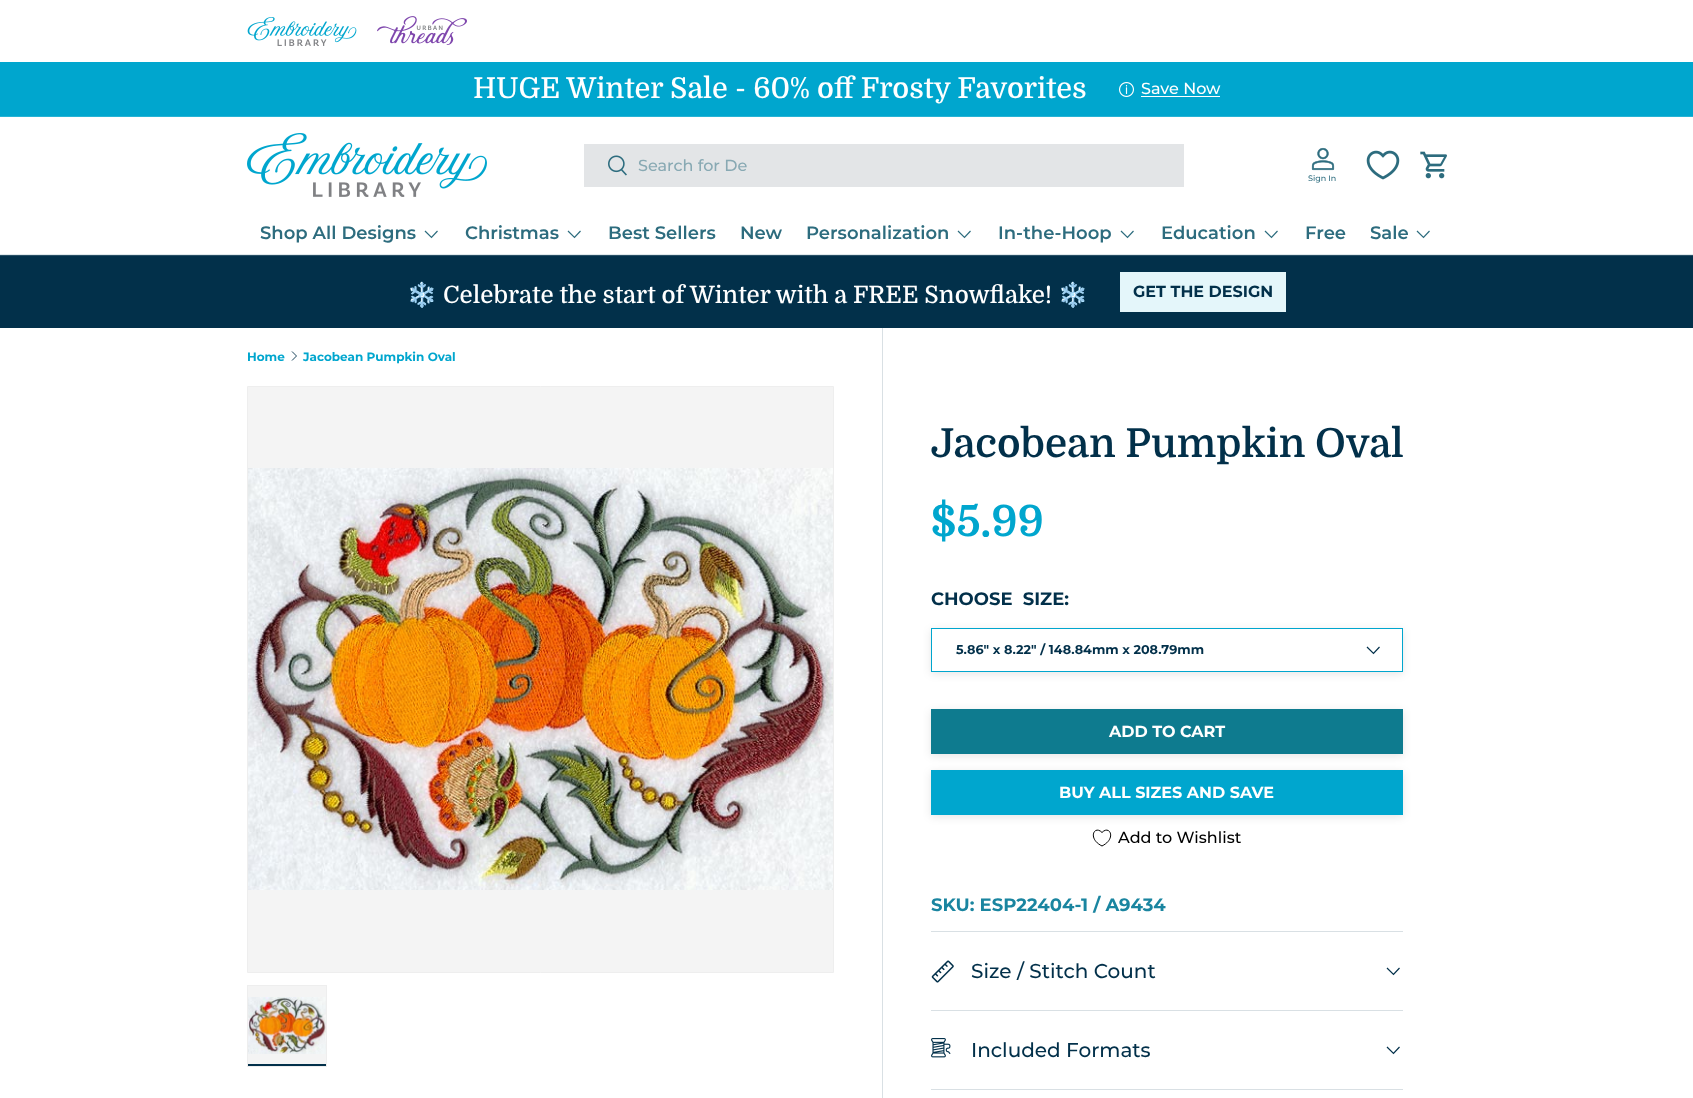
<!DOCTYPE html>
<meta charset="utf-8">
<style>body { margin: 0 } canvas { display: block }</style>
<canvas id="canvas" width="1693" height="1098"></canvas>
<img id="img1" src="img_01.png" hidden>
<img id="img2" src="img_02.png" hidden>
<img id="img3" src="img_03.png" hidden>
<img id="img4" src="img_04.png" hidden>
<img id="img5" src="img_05.png" hidden>
<img id="img6" src="img_06.png" hidden>
<img id="img7" src="img_07.png" hidden>
<img id="img8" src="img_08.png" hidden>
<img id="img9" src="img_09.png" hidden>
<img id="img10" src="img_10.png" hidden>
<img id="img11" src="img_11.png" hidden>
<img id="img12" src="img_12.png" hidden>
<script>
window.onload = function () {
	const canvas = document.getElementById("canvas");
	const ctx = canvas.getContext("2d");
	ctx.miterLimit = 4;
	ctx.fontKerning = "normal";
	function txt(s, x, y) {
		ctx.fillText(s, x, y);
	}
	function fill(x, y, w, h) {
		ctx.fillRect(x, y, w, h);
	}
	function img(id, x, y, w, h) {
		ctx.drawImage(document.getElementById(id), x, y, w, h);
	}
	let gradient;

	ctx.fillStyle = "#FFFFFF";
	fill(0, 0, 1693, 1098);
	img("img1", 247, 17, 110, 29);
	img("img2", 377, 16, 90, 29);
	ctx.fillStyle = "#00A6CE";
	fill(0, 62, 1693, 54);
	ctx.fillStyle = "#26B3D5";
	fill(0, 116, 1693, 1);
	img("img3", 1119, 82, 15, 15);
	ctx.fillStyle = "#FFFFFF";
	fill(1141, 96, 79, 1);
	ctx.fillStyle = "#E0E9EC";
	fill(0, 254, 1693, 1);
	img("img4", 247, 133, 240, 64);
	ctx.fillStyle = "#E3E5E7";
	fill(584, 144, 600, 43);
	img("img5", 608, 155, 19, 21);
	img("img6", 1311, 147, 24, 24);
	img("img7", 1366, 150, 34, 30);
	img("img8", 1420, 151, 27, 28);
	ctx.beginPath();
	ctx.moveTo(437.5, 231);
	ctx.lineTo(431.5, 237.5);
	ctx.lineTo(425, 231);
	ctx.strokeStyle = "#2D6C7E";
	ctx.lineWidth = 1.2;
	ctx.stroke();
	ctx.beginPath();
	ctx.moveTo(580.5, 231);
	ctx.lineTo(574.5, 237.5);
	ctx.lineTo(568, 231);
	ctx.stroke();
	ctx.beginPath();
	ctx.moveTo(970.5, 231);
	ctx.lineTo(964.5, 237.5);
	ctx.lineTo(958, 231);
	ctx.stroke();
	ctx.beginPath();
	ctx.moveTo(1133.5, 231);
	ctx.lineTo(1127.5, 237.5);
	ctx.lineTo(1121, 231);
	ctx.stroke();
	ctx.beginPath();
	ctx.moveTo(1277.5, 231);
	ctx.lineTo(1271.5, 237.5);
	ctx.lineTo(1265, 231);
	ctx.stroke();
	ctx.beginPath();
	ctx.moveTo(1429.5, 231);
	ctx.lineTo(1423.5, 237.5);
	ctx.lineTo(1417, 231);
	ctx.stroke();
	ctx.fillStyle = "#02304A";
	fill(0, 256, 1693, 72);
	ctx.fillStyle = "#284F65";
	fill(0, 255, 1693, 1);
	gradient = ctx.createLinearGradient(803, 233, 1275, 351);
	gradient.addColorStop(0.6, "#CCDEE5");
	gradient.addColorStop(0.6, "#E4F6FA");
	gradient.addColorStop(1, "#E4F6FA");
	ctx.fillStyle = gradient;
	fill(1121, 273, 164, 38);
	ctx.strokeStyle = "#E4F6FA";
	ctx.lineWidth = 1;
	ctx.strokeRect(1120.5, 272.5, 165, 39);
	ctx.beginPath();
	ctx.moveTo(292, 351.5);
	ctx.lineTo(296.5, 356);
	ctx.lineTo(292, 360.5);
	ctx.strokeStyle = "#02304A";
	ctx.lineWidth = 0.9;
	ctx.stroke();
	ctx.fillStyle = "#F4F4F4";
	ctx.beginPath();
	ctx.rect(247.5, 386.5, 586, 586);
	ctx.fill();
	ctx.strokeStyle = "#EEEEEE";
	ctx.lineWidth = 1;
	ctx.stroke();
	img("img9", 248, 468, 585, 422);
	fill(248, 986, 78, 78);
	ctx.strokeRect(247.5, 985.5, 79, 81);
	img("img10", 248, 997, 78, 57);
	ctx.fillStyle = "#02304A";
	fill(248, 1064, 78, 2);
	ctx.fillStyle = "#D9E0E4";
	fill(882, 328, 1, 770);
	ctx.save();
	ctx.beginPath();
	ctx.moveTo(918, 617);
	ctx.lineTo(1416, 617);
	ctx.lineTo(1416, 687);
	ctx.lineTo(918, 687);
	ctx.closePath();
	ctx.moveTo(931, 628);
	ctx.lineTo(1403, 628);
	ctx.lineTo(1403, 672);
	ctx.lineTo(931, 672);
	ctx.closePath();
	ctx.clip("evenodd");
	ctx.fillStyle = "rgba(0, 0, 0, 0.1)";
	ctx.filter = "blur(4px)";
	ctx.beginPath();
	ctx.rect(931, 630, 472, 44);
	ctx.fill();
	ctx.filter = "none";
	ctx.restore();
	ctx.strokeStyle = "#00A6CE";
	ctx.strokeRect(931.5, 628.5, 471, 43);
	ctx.beginPath();
	ctx.moveTo(1379.5, 647);
	ctx.lineTo(1373.5, 653.5);
	ctx.lineTo(1367, 647);
	ctx.strokeStyle = "#02304A";
	ctx.lineWidth = 1.2;
	ctx.stroke();
	ctx.fillStyle = "rgba(0, 0, 0, 0.1)";
	ctx.filter = "blur(4px)";
	ctx.beginPath();
	ctx.rect(931, 711, 472, 45);
	ctx.fill();
	ctx.filter = "none";
	gradient = ctx.createLinearGradient(28, 565, 1366, 898);
	gradient.addColorStop(0.6, "#3699AC");
	gradient.addColorStop(0.6, "#0E7B8F");
	gradient.addColorStop(1, "#0E7B8F");
	ctx.fillStyle = gradient;
	fill(932, 710, 470, 43);
	ctx.strokeStyle = "#0E7B8F";
	ctx.lineWidth = 1;
	ctx.strokeRect(931.5, 709.5, 471, 44);
	ctx.fillStyle = "rgba(0, 0, 0, 0.1)";
	ctx.filter = "blur(4px)";
	ctx.beginPath();
	ctx.rect(931, 772, 472, 45);
	ctx.fill();
	ctx.filter = "none";
	ctx.fillStyle = "#00A6CE";
	fill(931, 770, 472, 45);
	ctx.beginPath();
	ctx.moveTo(1102, 846);
	ctx.bezierCurveTo(1087, 838.5, 1094.5, 824.5, 1102, 832.5);
	ctx.bezierCurveTo(1109.5, 824.5, 1117, 838.5, 1102, 846);
	ctx.closePath();
	ctx.strokeStyle = "#000000";
	ctx.stroke();
	ctx.fillStyle = "#D9E0E4";
	fill(931, 931, 472, 1);
	fill(931, 1010, 472, 1);
	img("img11", 931, 960, 23, 23);
	ctx.beginPath();
	ctx.moveTo(1399.5, 968);
	ctx.lineTo(1393.5, 974.5);
	ctx.lineTo(1387, 968);
	ctx.strokeStyle = "#02304A";
	ctx.lineWidth = 1.2;
	ctx.stroke();
	fill(931, 1089, 472, 1);
	img("img12", 931, 1038, 20, 20);
	ctx.beginPath();
	ctx.moveTo(1399.5, 1047);
	ctx.lineTo(1393.5, 1053.5);
	ctx.lineTo(1387, 1047);
	ctx.stroke();
	ctx.font = "500 28.8px Domine";
	ctx.fillStyle = "#FFFFFF";
	txt("HUGE Winter Sale - 60% off Frosty Favorites", 473, 98);
	ctx.font = "500 16px Montserrat";
	txt("Save Now", 1141, 94);
	ctx.fillStyle = "#88A9B3";
	txt("Search for De", 638, 171);
	ctx.font = "500 8px Montserrat";
	ctx.fillStyle = "#2D6C7E";
	txt("Sign In", 1308, 181);
	ctx.font = "600 18px Montserrat";
	txt("Shop All Designs", 260, 239);
	txt("Christmas", 465, 239);
	txt("Best Sellers", 608, 239);
	txt("New", 740, 239);
	txt("Personalization", 806, 239);
	txt("In-the-Hoop", 998, 239);
	txt("Education", 1161, 239);
	txt("Free", 1305, 239);
	txt("Sale", 1370, 239);
	ctx.font = "24px Noto Color Emoji";
	ctx.fillStyle = "#FFFFFF";
	txt("❄️", 407, 303);
	ctx.font = "500 24px Domine";
	txt("Celebrate the start of Winter with a FREE Snowflake!", 443, 303);
	ctx.font = "24px Noto Color Emoji";
	txt("❄️", 1058, 303);
	ctx.font = "bold 16px Montserrat";
	ctx.fillStyle = "#02304A";
	txt("GET THE DESIGN", 1133, 297);
	ctx.font = "bold 12px Montserrat";
	ctx.fillStyle = "#00A6CE";
	txt("Home", 247, 361);
	txt("Jacobean Pumpkin Oval", 303, 361);
	ctx.font = "600 40px Domine";
	ctx.fillStyle = "#02304A";
	txt("Jacobean Pumpkin Oval", 931, 457);
	ctx.font = "bold 43px Domine";
	ctx.fillStyle = "#00A6CE";
	txt("$5.99", 931, 536);
	ctx.font = "bold 18px Montserrat";
	ctx.fillStyle = "#02304A";
	txt("CHOOSE  SIZE:", 931, 605);
	ctx.font = "bold 12.75px Montserrat";
	txt("5.86\" x 8.22\" / 148.84mm x 208.79mm", 956, 654);
	ctx.font = "bold 16px Montserrat";
	ctx.fillStyle = "#FFFFFF";
	txt("ADD TO CART", 1109, 737);
	txt("BUY ALL SIZES AND SAVE", 1059, 798);
	ctx.font = "500 16px Montserrat";
	ctx.fillStyle = "#000000";
	txt("Add to Wishlist", 1118, 843);
	ctx.font = "bold 18px Montserrat";
	ctx.fillStyle = "#1A85A0";
	txt("SKU: ESP22404-1 / A9434", 931, 911);
	ctx.font = "500 20px Montserrat";
	ctx.fillStyle = "#02304A";
	txt("Size / Stitch Count", 971, 978);
	txt("Included Formats", 971, 1057);
};
</script>
